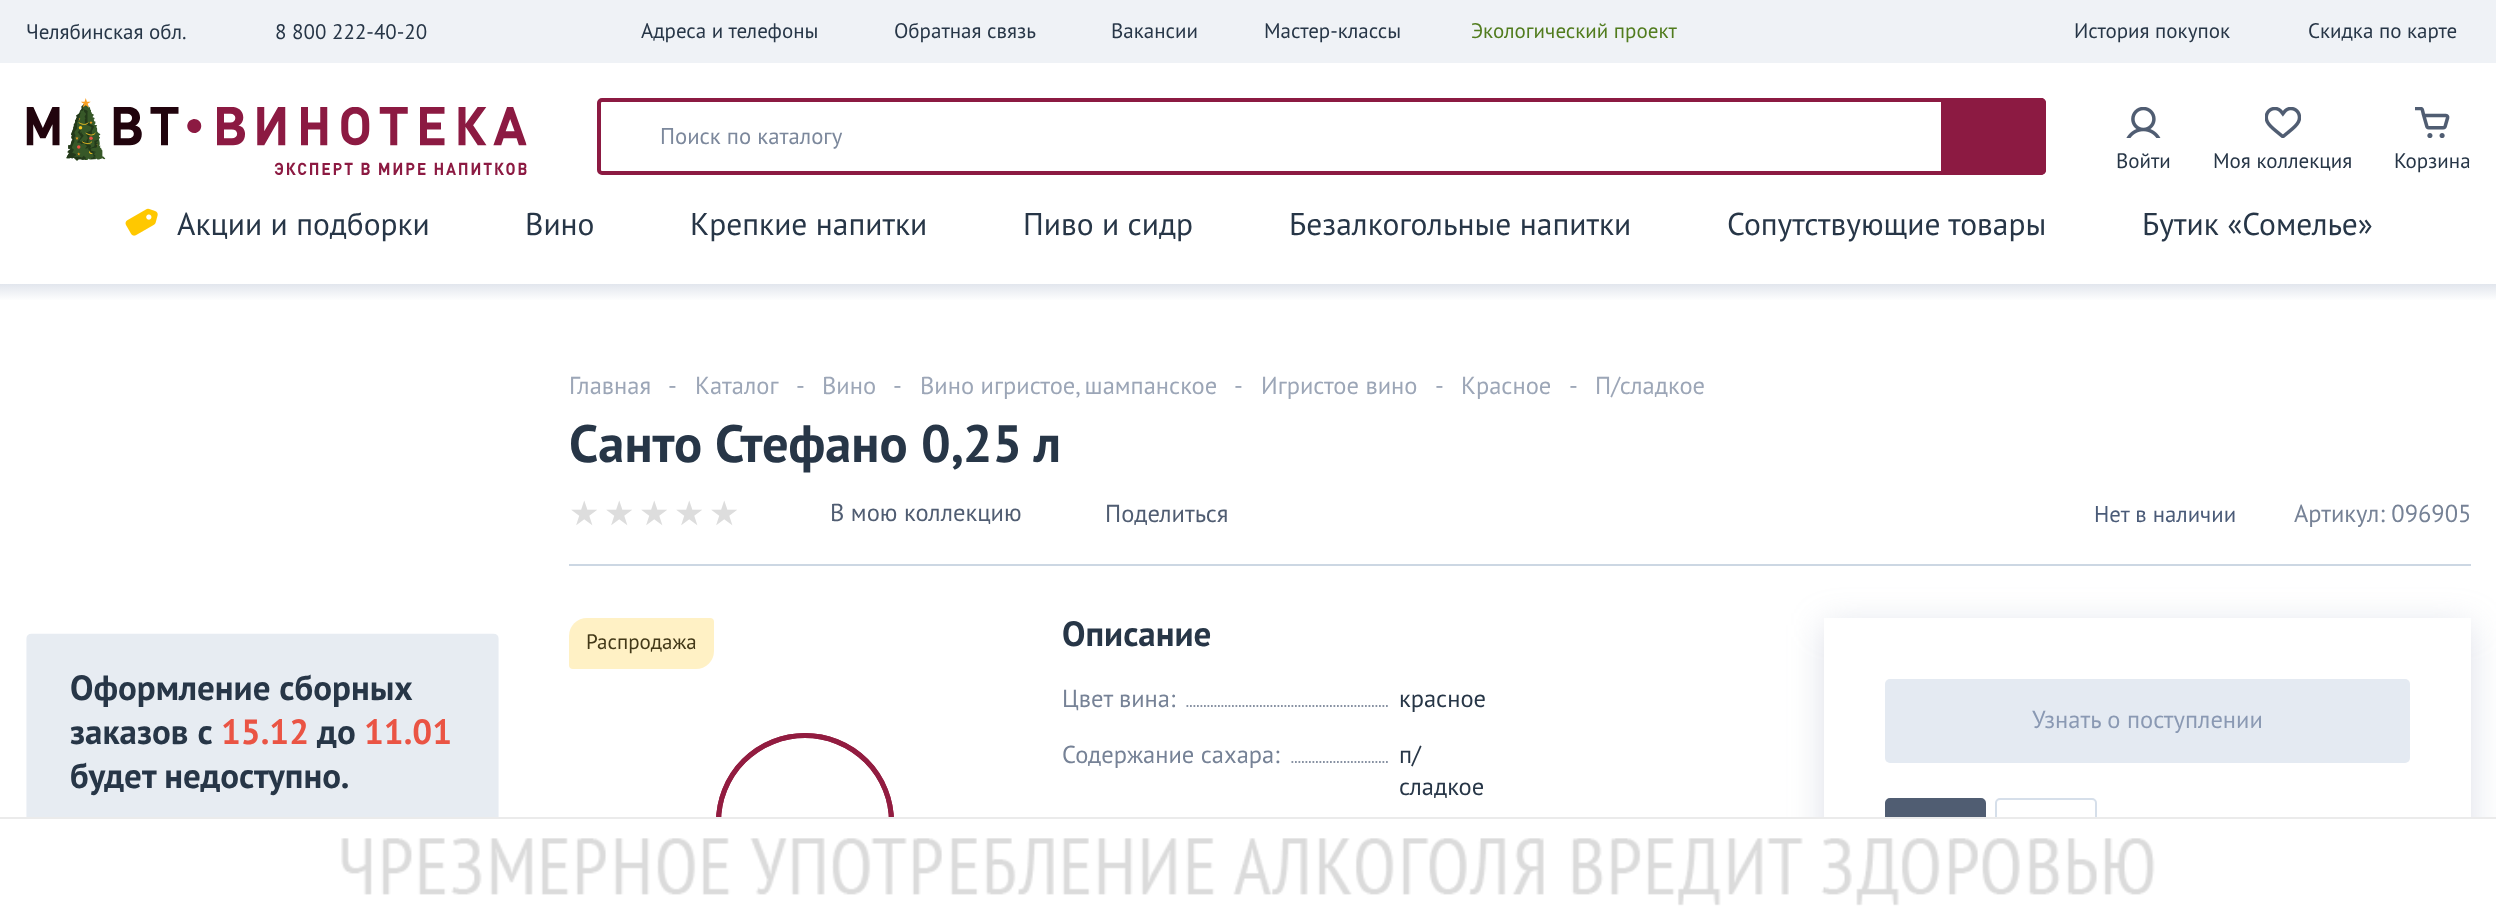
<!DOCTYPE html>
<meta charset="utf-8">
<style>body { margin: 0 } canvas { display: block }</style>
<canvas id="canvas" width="2496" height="921"></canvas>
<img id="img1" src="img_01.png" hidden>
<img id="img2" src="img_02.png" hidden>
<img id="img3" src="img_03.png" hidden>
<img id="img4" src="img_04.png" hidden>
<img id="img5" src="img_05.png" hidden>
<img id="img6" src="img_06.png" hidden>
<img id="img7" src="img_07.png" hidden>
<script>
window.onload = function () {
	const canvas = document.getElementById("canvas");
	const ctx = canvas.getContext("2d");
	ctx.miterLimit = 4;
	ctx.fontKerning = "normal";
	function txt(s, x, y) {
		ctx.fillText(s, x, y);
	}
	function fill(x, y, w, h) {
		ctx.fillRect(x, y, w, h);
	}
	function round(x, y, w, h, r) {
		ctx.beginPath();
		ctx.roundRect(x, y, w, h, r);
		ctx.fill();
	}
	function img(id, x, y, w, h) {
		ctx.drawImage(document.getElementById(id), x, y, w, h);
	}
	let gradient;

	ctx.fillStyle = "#FFFFFF";
	fill(0, 0, 2496, 921);
	ctx.fillStyle = "#EFF2F6";
	fill(0, 0, 2496, 63);
	img("img1", 26, 98, 501, 77);
	ctx.beginPath();
	ctx.roundRect(599, 100, 1445, 73, 3);
	ctx.strokeStyle = "#8C1A42";
	ctx.lineWidth = 4;
	ctx.stroke();
	ctx.fillStyle = "#8C1A42";
	ctx.beginPath();
	ctx.roundRect(1941, 98, 105, 77, [0, 5, 5, 0]);
	ctx.fill();
	img("img2", 2126, 107, 35, 31);
	img("img3", 2265, 107, 36, 31);
	img("img4", 2415, 107, 35, 31);
	img("img5", 125, 208, 33, 28);
	gradient = ctx.createLinearGradient(1249, 283, 1249, 301);
	gradient.addColorStop(0, "#E0E4EC");
	gradient.addColorStop(1, "#FFFFFF");
	ctx.fillStyle = gradient;
	fill(0, 284, 2496, 16);
	img("img6", 26, 633, 473, 184);
	ctx.fillStyle = "#CCD7E3";
	fill(569, 564, 1902, 2);
	ctx.fillStyle = "#FFF1C5";
	ctx.beginPath();
	ctx.roundRect(569, 618, 145, 51, [18, 4, 18, 4]);
	ctx.fill();
	ctx.beginPath();
	ctx.roundRect(718.5, 735.5, 173, 174, 86.5);
	ctx.strokeStyle = "#921C40";
	ctx.lineWidth = 5;
	ctx.stroke();
	ctx.beginPath();
	ctx.roundRect(718.5, 735.5, 173, 174, 86.5);
	ctx.stroke();
	ctx.save();
	ctx.beginPath();
	ctx.rect(1062, 684, 326, 32);
	ctx.clip();
	ctx.beginPath();
	ctx.moveTo(1186.5, 706);
	ctx.lineTo(1514, 706);
	ctx.strokeStyle = "#8791A2";
	ctx.lineWidth = 1.8;
	ctx.setLineDash([1.75, 1.75]);
	ctx.stroke();
	ctx.restore();
	ctx.save();
	ctx.beginPath();
	ctx.rect(1062, 740, 326, 63);
	ctx.clip();
	ctx.beginPath();
	ctx.moveTo(1291.5, 762);
	ctx.lineTo(1617, 762);
	ctx.strokeStyle = "#8791A2";
	ctx.lineWidth = 1.8;
	ctx.setLineDash([1.75, 1.75]);
	ctx.stroke();
	ctx.restore();
	ctx.fillStyle = "rgba(138, 153, 179, 0.3)";
	ctx.filter = "blur(17.5px)";
	ctx.beginPath();
	ctx.rect(1824, 625, 647, 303);
	ctx.fill();
	ctx.filter = "none";
	ctx.fillStyle = "#FFFFFF";
	fill(1824, 618, 647, 199);
	ctx.fillStyle = "#E4EAF2";
	round(1885, 679, 525, 84, 5);
	ctx.fillStyle = "#505D72";
	ctx.beginPath();
	ctx.roundRect(1886, 799, 99, 56, 4);
	ctx.fill();
	ctx.strokeStyle = "#505D72";
	ctx.lineWidth = 2;
	ctx.stroke();
	ctx.beginPath();
	ctx.roundRect(1996, 799, 100, 56, 4);
	ctx.strokeStyle = "#D6DFEA";
	ctx.stroke();
	ctx.fillStyle = "#FFFFFF";
	fill(716, 819, 1780, 102);
	img("img7", 341, 838, 1814, 68);
	ctx.fillStyle = "#EBEBEB";
	fill(0, 817, 2496, 2);
	ctx.font = "21px PT Sans";
	ctx.fillStyle = "#273647";
	txt("Челябинская обл.", 26, 39);
	txt("8 800 222-40-20", 275, 39);
	txt("Адреса и телефоны", 641, 38);
	txt("Обратная связь", 894, 38);
	txt("Вакансии", 1111, 38);
	txt("Мастер-классы", 1264, 38);
	ctx.fillStyle = "#517C1E";
	txt("Экологический проект", 1471, 38);
	ctx.fillStyle = "#273647";
	txt("История покупок", 2074, 38);
	txt("Скидка по карте", 2308, 38);
	ctx.font = "22.75px PT Sans";
	ctx.fillStyle = "#7C889C";
	txt("Поиск по каталогу", 660, 144);
	ctx.font = "21px PT Sans";
	ctx.fillStyle = "#273647";
	txt("Войти", 2116, 168);
	txt("Моя коллекция", 2213, 168);
	txt("Корзина", 2394, 168);
	ctx.font = "31.5px PT Sans";
	txt("Акции и подборки", 177, 235);
	txt("Вино", 525, 235);
	txt("Крепкие напитки", 690, 235);
	txt("Пиво и сидр", 1023, 235);
	txt("Безалкогольные напитки", 1289, 235);
	txt("Сопутствующие товары", 1727, 235);
	txt("Бутик «Сомелье»", 2142, 235);
	ctx.font = "bold 35px PT Sans";
	txt("Оформление сборных", 70, 700);
	txt("заказов с", 70, 744);
	ctx.fillStyle = "#EA5444";
	txt("15.12", 221, 744);
	ctx.fillStyle = "#273647";
	txt("до", 317, 744);
	ctx.fillStyle = "#EA5444";
	txt("11.01", 364, 744);
	ctx.fillStyle = "#273647";
	txt("будет недоступно.", 70, 788);
	ctx.font = "24.5px PT Sans";
	ctx.fillStyle = "#9CA6B7";
	txt("Главная", 569, 394);
	txt("-", 668, 394);
	txt("Каталог", 695, 394);
	txt("-", 796, 394);
	txt("Вино", 822, 394);
	txt("-", 893, 394);
	txt("Вино игристое, шампанское", 920, 394);
	txt("-", 1234, 394);
	txt("Игристое вино", 1261, 394);
	txt("-", 1435, 394);
	txt("Красное", 1461, 394);
	txt("-", 1569, 394);
	txt("П/сладкое", 1595, 394);
	ctx.font = "bold 52.5px PT Sans";
	ctx.fillStyle = "#273647";
	txt("Санто Стефано 0,25 л", 569, 462);
	ctx.font = "34px DejaVu Sans";
	ctx.fillStyle = "#DDDDDD";
	txt("★", 569, 525);
	txt("★", 604, 525);
	txt("★", 639, 525);
	txt("★", 674, 525);
	txt("★", 709, 525);
	ctx.font = "24.5px PT Sans";
	ctx.fillStyle = "#505D72";
	txt("В мою коллекцию", 830, 521);
	txt("Поделиться", 1105, 522);
	ctx.font = "22.75px PT Sans";
	ctx.fillStyle = "#4A5B78";
	txt("Нет в наличии", 2094, 522);
	ctx.font = "24.5px PT Sans";
	ctx.fillStyle = "#768296";
	txt("Артикул: 096905", 2294, 522);
	ctx.font = "21px PT Sans";
	ctx.fillStyle = "#433918";
	txt("Распродажа", 586, 649);
	ctx.font = "bold 35px PT Sans";
	ctx.fillStyle = "#273647";
	txt("Описание", 1062, 646);
	ctx.font = "24.5px PT Sans";
	ctx.fillStyle = "#768296";
	txt("Цвет вина:", 1062, 707);
	ctx.fillStyle = "#273647";
	txt("красное", 1399, 707);
	ctx.fillStyle = "#768296";
	txt("Содержание сахара:", 1062, 763);
	ctx.fillStyle = "#273647";
	txt("п/", 1399, 763);
	txt("сладкое", 1399, 795);
	ctx.fillStyle = "#8A99B3";
	txt("Узнать о поступлении", 2032, 728);
};
</script>
